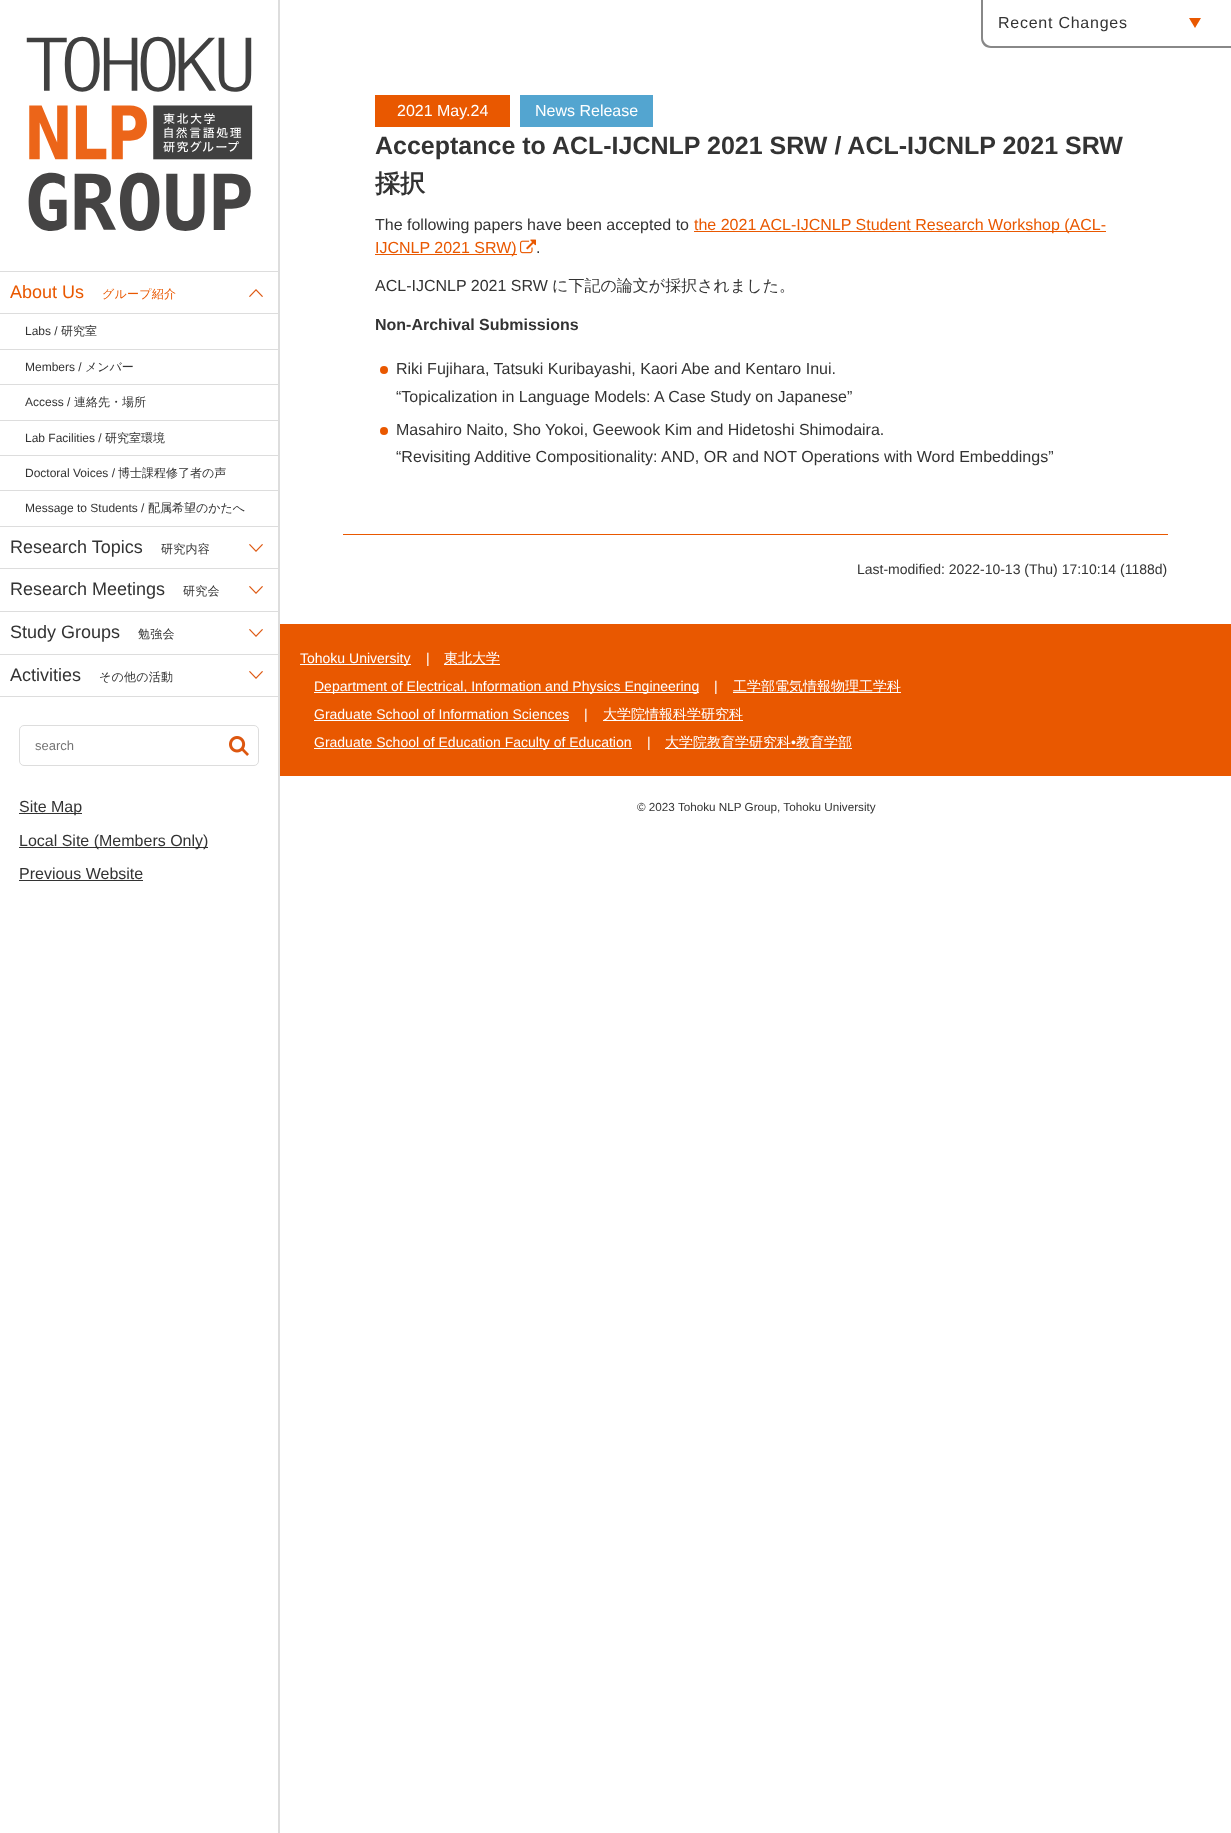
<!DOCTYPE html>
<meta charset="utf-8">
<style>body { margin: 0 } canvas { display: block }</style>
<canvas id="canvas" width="1231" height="1833"></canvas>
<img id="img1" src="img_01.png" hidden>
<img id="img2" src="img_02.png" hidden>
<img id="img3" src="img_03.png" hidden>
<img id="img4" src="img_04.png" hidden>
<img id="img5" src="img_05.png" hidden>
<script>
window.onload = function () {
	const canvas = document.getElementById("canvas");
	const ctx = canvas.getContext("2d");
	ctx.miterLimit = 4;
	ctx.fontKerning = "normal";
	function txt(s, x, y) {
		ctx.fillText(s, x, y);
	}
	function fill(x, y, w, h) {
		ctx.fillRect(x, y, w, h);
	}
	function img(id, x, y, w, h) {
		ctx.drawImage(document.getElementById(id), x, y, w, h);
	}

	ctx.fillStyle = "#FFFFFF";
	fill(0, 0, 1231, 1833);
	ctx.fillStyle = "#DDDDDD";
	fill(278, 0, 2, 1833);
	img("img1", 26, 36, 227, 195);
	fill(0, 271, 278, 1);
	img("img2", 249, 289, 14, 8);
	fill(0, 313, 278, 1);
	fill(0, 349, 278, 1);
	fill(0, 384, 278, 1);
	fill(0, 420, 278, 1);
	fill(0, 455, 278, 1);
	fill(0, 490, 278, 1);
	fill(0, 526, 278, 1);
	img("img3", 249, 544, 14, 8);
	fill(0, 568, 278, 1);
	img("img3", 249, 586, 14, 8);
	fill(0, 611, 278, 1);
	img("img3", 249, 629, 14, 8);
	fill(0, 654, 278, 1);
	img("img3", 249, 671, 14, 8);
	fill(0, 696, 278, 1);
	ctx.beginPath();
	ctx.roundRect(19.5, 725.5, 239, 40, 4.5);
	ctx.strokeStyle = "#DDDDDD";
	ctx.stroke();
	img("img4", 229, 736, 20, 20);
	ctx.fillStyle = "#333333";
	fill(19, 813, 63, 1);
	fill(19, 847, 189, 1);
	fill(19, 880, 124, 1);
	ctx.fillStyle = "#888888";
	ctx.beginPath();
	ctx.moveTo(981, 0);
	ctx.lineTo(1231, 0);
	ctx.lineTo(1231, 48);
	ctx.lineTo(991, 48);
	ctx.bezierCurveTo(985, 48, 981, 44, 981, 38);
	ctx.closePath();
	ctx.moveTo(983, 0);
	ctx.lineTo(1231, 0);
	ctx.lineTo(1231, 46);
	ctx.lineTo(991, 46);
	ctx.bezierCurveTo(987, 46, 983, 42, 983, 38);
	ctx.closePath();
	ctx.fill("evenodd");
	ctx.fillStyle = "#E95800";
	ctx.beginPath();
	ctx.moveTo(1189, 18);
	ctx.lineTo(1201, 18);
	ctx.lineTo(1195, 28);
	ctx.closePath();
	ctx.fill();
	fill(375, 95, 135, 32);
	ctx.fillStyle = "#53A5D0";
	fill(520, 95, 133, 32);
	ctx.fillStyle = "#E95800";
	fill(694, 231, 412, 1);
	fill(375, 254, 142, 1);
	img("img5", 520, 239, 16, 15);
	ctx.beginPath();
	ctx.arc(384, 370, 4, 0, Math.PI * 2);
	ctx.fill();
	ctx.beginPath();
	ctx.arc(384, 431, 4, 0, Math.PI * 2);
	ctx.fill();
	fill(343, 534, 825, 1);
	fill(280, 624, 951, 152);
	ctx.fillStyle = "#FFFFFF";
	fill(300, 664, 111, 1);
	fill(444, 664, 56, 1);
	fill(314, 692, 385, 1);
	fill(733, 692, 168, 1);
	fill(314, 720, 255, 1);
	fill(603, 720, 140, 1);
	fill(314, 748, 318, 1);
	fill(665, 748, 187, 1);
	ctx.font = "18px Liberation Sans";
	ctx.fillStyle = "#E95800";
	txt("About Us", 10, 298);
	ctx.letterSpacing = "0.25px";
	ctx.font = "500 12px WenQuanYi Zen Hei";
	txt("グループ紹介", 102, 298);
	ctx.letterSpacing = "0px";
	ctx.font = "12px Liberation Sans";
	ctx.fillStyle = "#333333";
	txt("Labs /", 25, 335);
	ctx.font = "500 12px WenQuanYi Zen Hei";
	txt("研究室", 61, 335);
	ctx.font = "12px Liberation Sans";
	txt("Members /", 25, 371);
	ctx.font = "500 12px WenQuanYi Zen Hei";
	txt("メンバー", 85, 371);
	ctx.font = "12px Liberation Sans";
	txt("Access /", 25, 406);
	ctx.font = "500 12px WenQuanYi Zen Hei";
	txt("連絡先・場所", 74, 406);
	ctx.font = "12px Liberation Sans";
	txt("Lab Facilities /", 25, 442);
	ctx.font = "500 12px WenQuanYi Zen Hei";
	txt("研究室環境", 105, 442);
	ctx.font = "12px Liberation Sans";
	txt("Doctoral Voices /", 25, 477);
	ctx.font = "500 12px WenQuanYi Zen Hei";
	txt("博士課程修了者の声", 118, 477);
	ctx.font = "12px Liberation Sans";
	txt("Message to Students /", 25, 512);
	ctx.font = "500 12px WenQuanYi Zen Hei";
	txt("配属希望のかたへ", 148, 512);
	ctx.font = "18px Liberation Sans";
	txt("Research Topics", 10, 553);
	ctx.letterSpacing = "0.25px";
	ctx.font = "500 12px WenQuanYi Zen Hei";
	txt("研究内容", 161, 553);
	ctx.letterSpacing = "0px";
	ctx.font = "18px Liberation Sans";
	txt("Research Meetings", 10, 595);
	ctx.letterSpacing = "0.25px";
	ctx.font = "500 12px WenQuanYi Zen Hei";
	txt("研究会", 183, 595);
	ctx.letterSpacing = "0px";
	ctx.font = "18px Liberation Sans";
	txt("Study Groups", 10, 638);
	ctx.letterSpacing = "0.25px";
	ctx.font = "500 12px WenQuanYi Zen Hei";
	txt("勉強会", 138, 638);
	ctx.letterSpacing = "0px";
	ctx.font = "18px Liberation Sans";
	txt("Activities", 10, 681);
	ctx.letterSpacing = "0.25px";
	ctx.font = "500 12px WenQuanYi Zen Hei";
	txt("その他の活動", 99, 681);
	ctx.letterSpacing = "0px";
	ctx.font = "13px Liberation Sans";
	ctx.fillStyle = "#757575";
	txt("search", 35, 750);
	ctx.font = "16px Liberation Sans";
	ctx.fillStyle = "#333333";
	txt("Site Map", 19, 812);
	txt("Local Site (Members Only)", 19, 846);
	txt("Previous Website", 19, 879);
	ctx.letterSpacing = "0.75px";
	txt("Recent Changes", 998, 28);
	ctx.letterSpacing = "0px";
	ctx.fillStyle = "#FFFFFF";
	txt("2021 May.24", 397, 116);
	txt("News Release", 535, 116);
	ctx.font = "bold 25px Liberation Sans";
	ctx.fillStyle = "#333333";
	txt("Acceptance to ACL-IJCNLP 2021 SRW / ACL-IJCNLP 2021 SRW", 375, 154);
	ctx.font = "bold 25px WenQuanYi Zen Hei";
	txt("採択", 375, 192);
	ctx.font = "16px Liberation Sans";
	txt("The following papers have been accepted to", 375, 230);
	ctx.fillStyle = "#E95800";
	txt("the 2021 ACL-IJCNLP Student Research Workshop (ACL-", 694, 230);
	txt("IJCNLP 2021 SRW)", 375, 253);
	ctx.fillStyle = "#333333";
	txt(".", 536, 253);
	txt("ACL-IJCNLP 2021 SRW", 375, 291);
	ctx.font = "500 16px WenQuanYi Zen Hei";
	txt("に下記の論文が採択されました。", 552, 291);
	ctx.font = "bold 16px Liberation Sans";
	txt("Non-Archival Submissions", 375, 330);
	ctx.font = "16px Liberation Sans";
	txt("Riki Fujihara, Tatsuki Kuribayashi, Kaori Abe and Kentaro Inui.", 396, 374);
	txt("“Topicalization in Language Models: A Case Study on Japanese”", 396, 402);
	txt("Masahiro Naito, Sho Yokoi, Geewook Kim and Hidetoshi Shimodaira.", 396, 435);
	txt("“Revisiting Additive Compositionality: AND, OR and NOT Operations with Word Embeddings”", 396, 462);
	ctx.font = "14px Liberation Sans";
	txt("Last-modified: 2022-10-13 (Thu) 17:10:14 (1188d)", 857, 574);
	ctx.fillStyle = "#FFFFFF";
	txt("Tohoku University", 300, 663);
	txt("|", 426, 663);
	ctx.font = "500 14px WenQuanYi Zen Hei";
	txt("東北大学", 444, 663);
	ctx.font = "14px Liberation Sans";
	txt("Department of Electrical, Information and Physics Engineering", 314, 691);
	txt("|", 714, 691);
	ctx.font = "500 14px WenQuanYi Zen Hei";
	txt("工学部電気情報物理工学科", 733, 691);
	ctx.font = "14px Liberation Sans";
	txt("Graduate School of Information Sciences", 314, 719);
	txt("|", 584, 719);
	ctx.font = "500 14px WenQuanYi Zen Hei";
	txt("大学院情報科学研究科", 603, 719);
	ctx.font = "14px Liberation Sans";
	txt("Graduate School of Education Faculty of Education", 314, 747);
	txt("|", 647, 747);
	ctx.font = "500 14px WenQuanYi Zen Hei";
	txt("大学院教育学研究科", 665, 747);
	ctx.font = "14px Liberation Sans";
	txt("•", 791, 747);
	ctx.font = "500 14px WenQuanYi Zen Hei";
	txt("教育学部", 796, 747);
	ctx.font = "11.7px Liberation Sans";
	ctx.fillStyle = "#333333";
	txt("© 2023 Tohoku NLP Group, Tohoku University", 637, 811);
};
</script>
